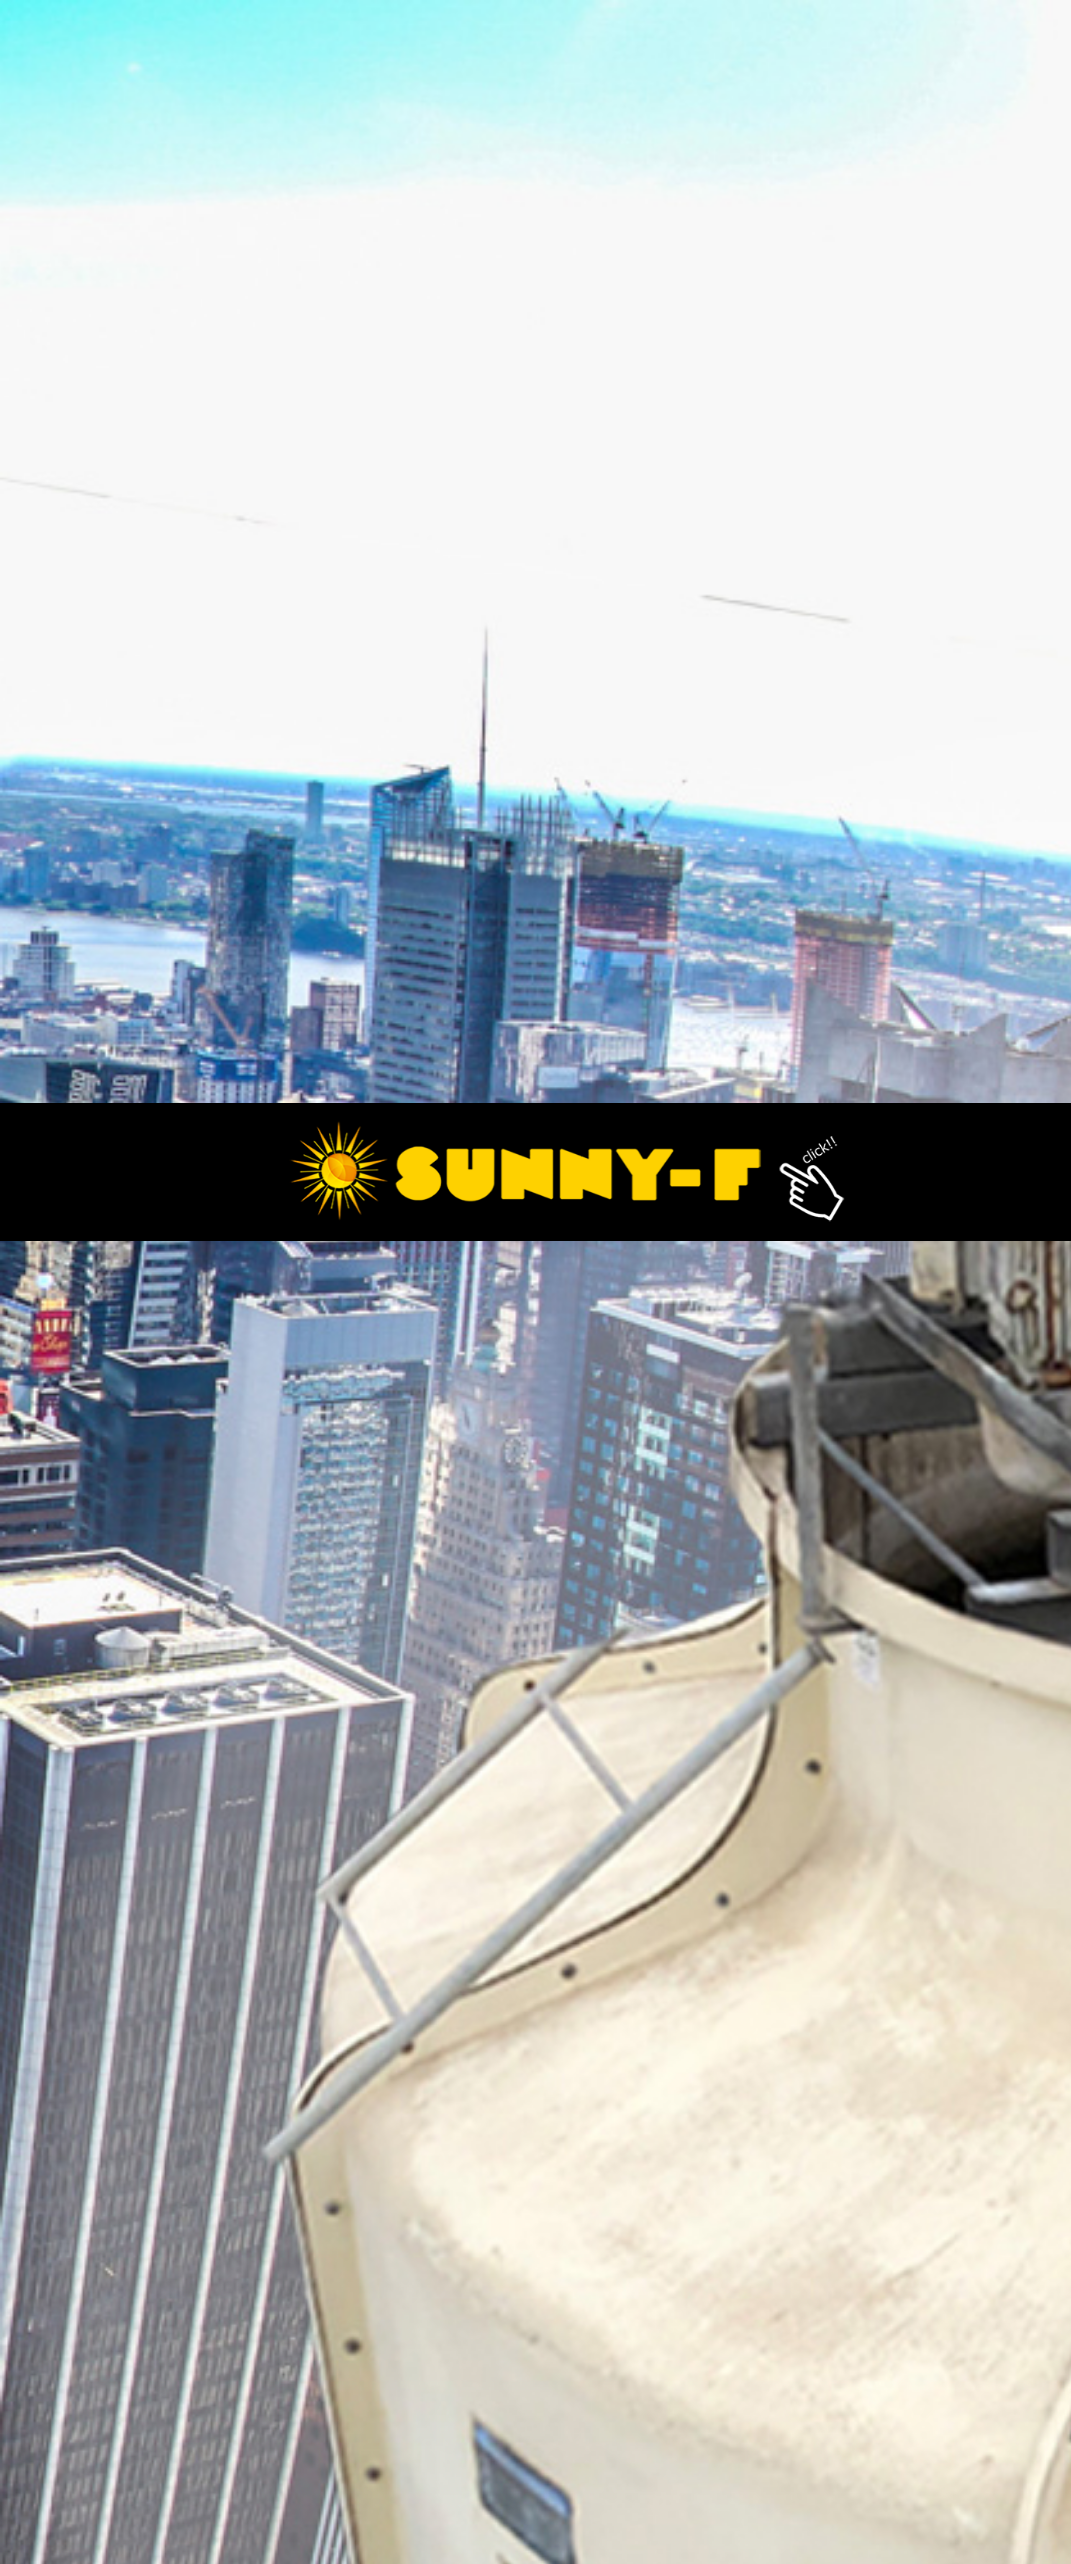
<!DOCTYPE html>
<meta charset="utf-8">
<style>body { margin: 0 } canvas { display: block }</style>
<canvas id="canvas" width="1071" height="2564"></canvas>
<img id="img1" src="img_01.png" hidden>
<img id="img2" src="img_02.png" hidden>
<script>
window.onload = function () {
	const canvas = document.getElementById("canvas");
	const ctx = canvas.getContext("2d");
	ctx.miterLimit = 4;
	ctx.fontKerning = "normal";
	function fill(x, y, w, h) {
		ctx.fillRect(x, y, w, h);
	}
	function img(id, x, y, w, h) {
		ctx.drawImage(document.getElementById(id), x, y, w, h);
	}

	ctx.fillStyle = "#FFFFFF";
	fill(0, 0, 1071, 2564);
	img("img1", 0, 0, 1071, 2564);
	ctx.fillStyle = "#000000";
	fill(0, 1103, 1071, 138);
	img("img2", 289, 1121, 556, 101);
};
</script>
